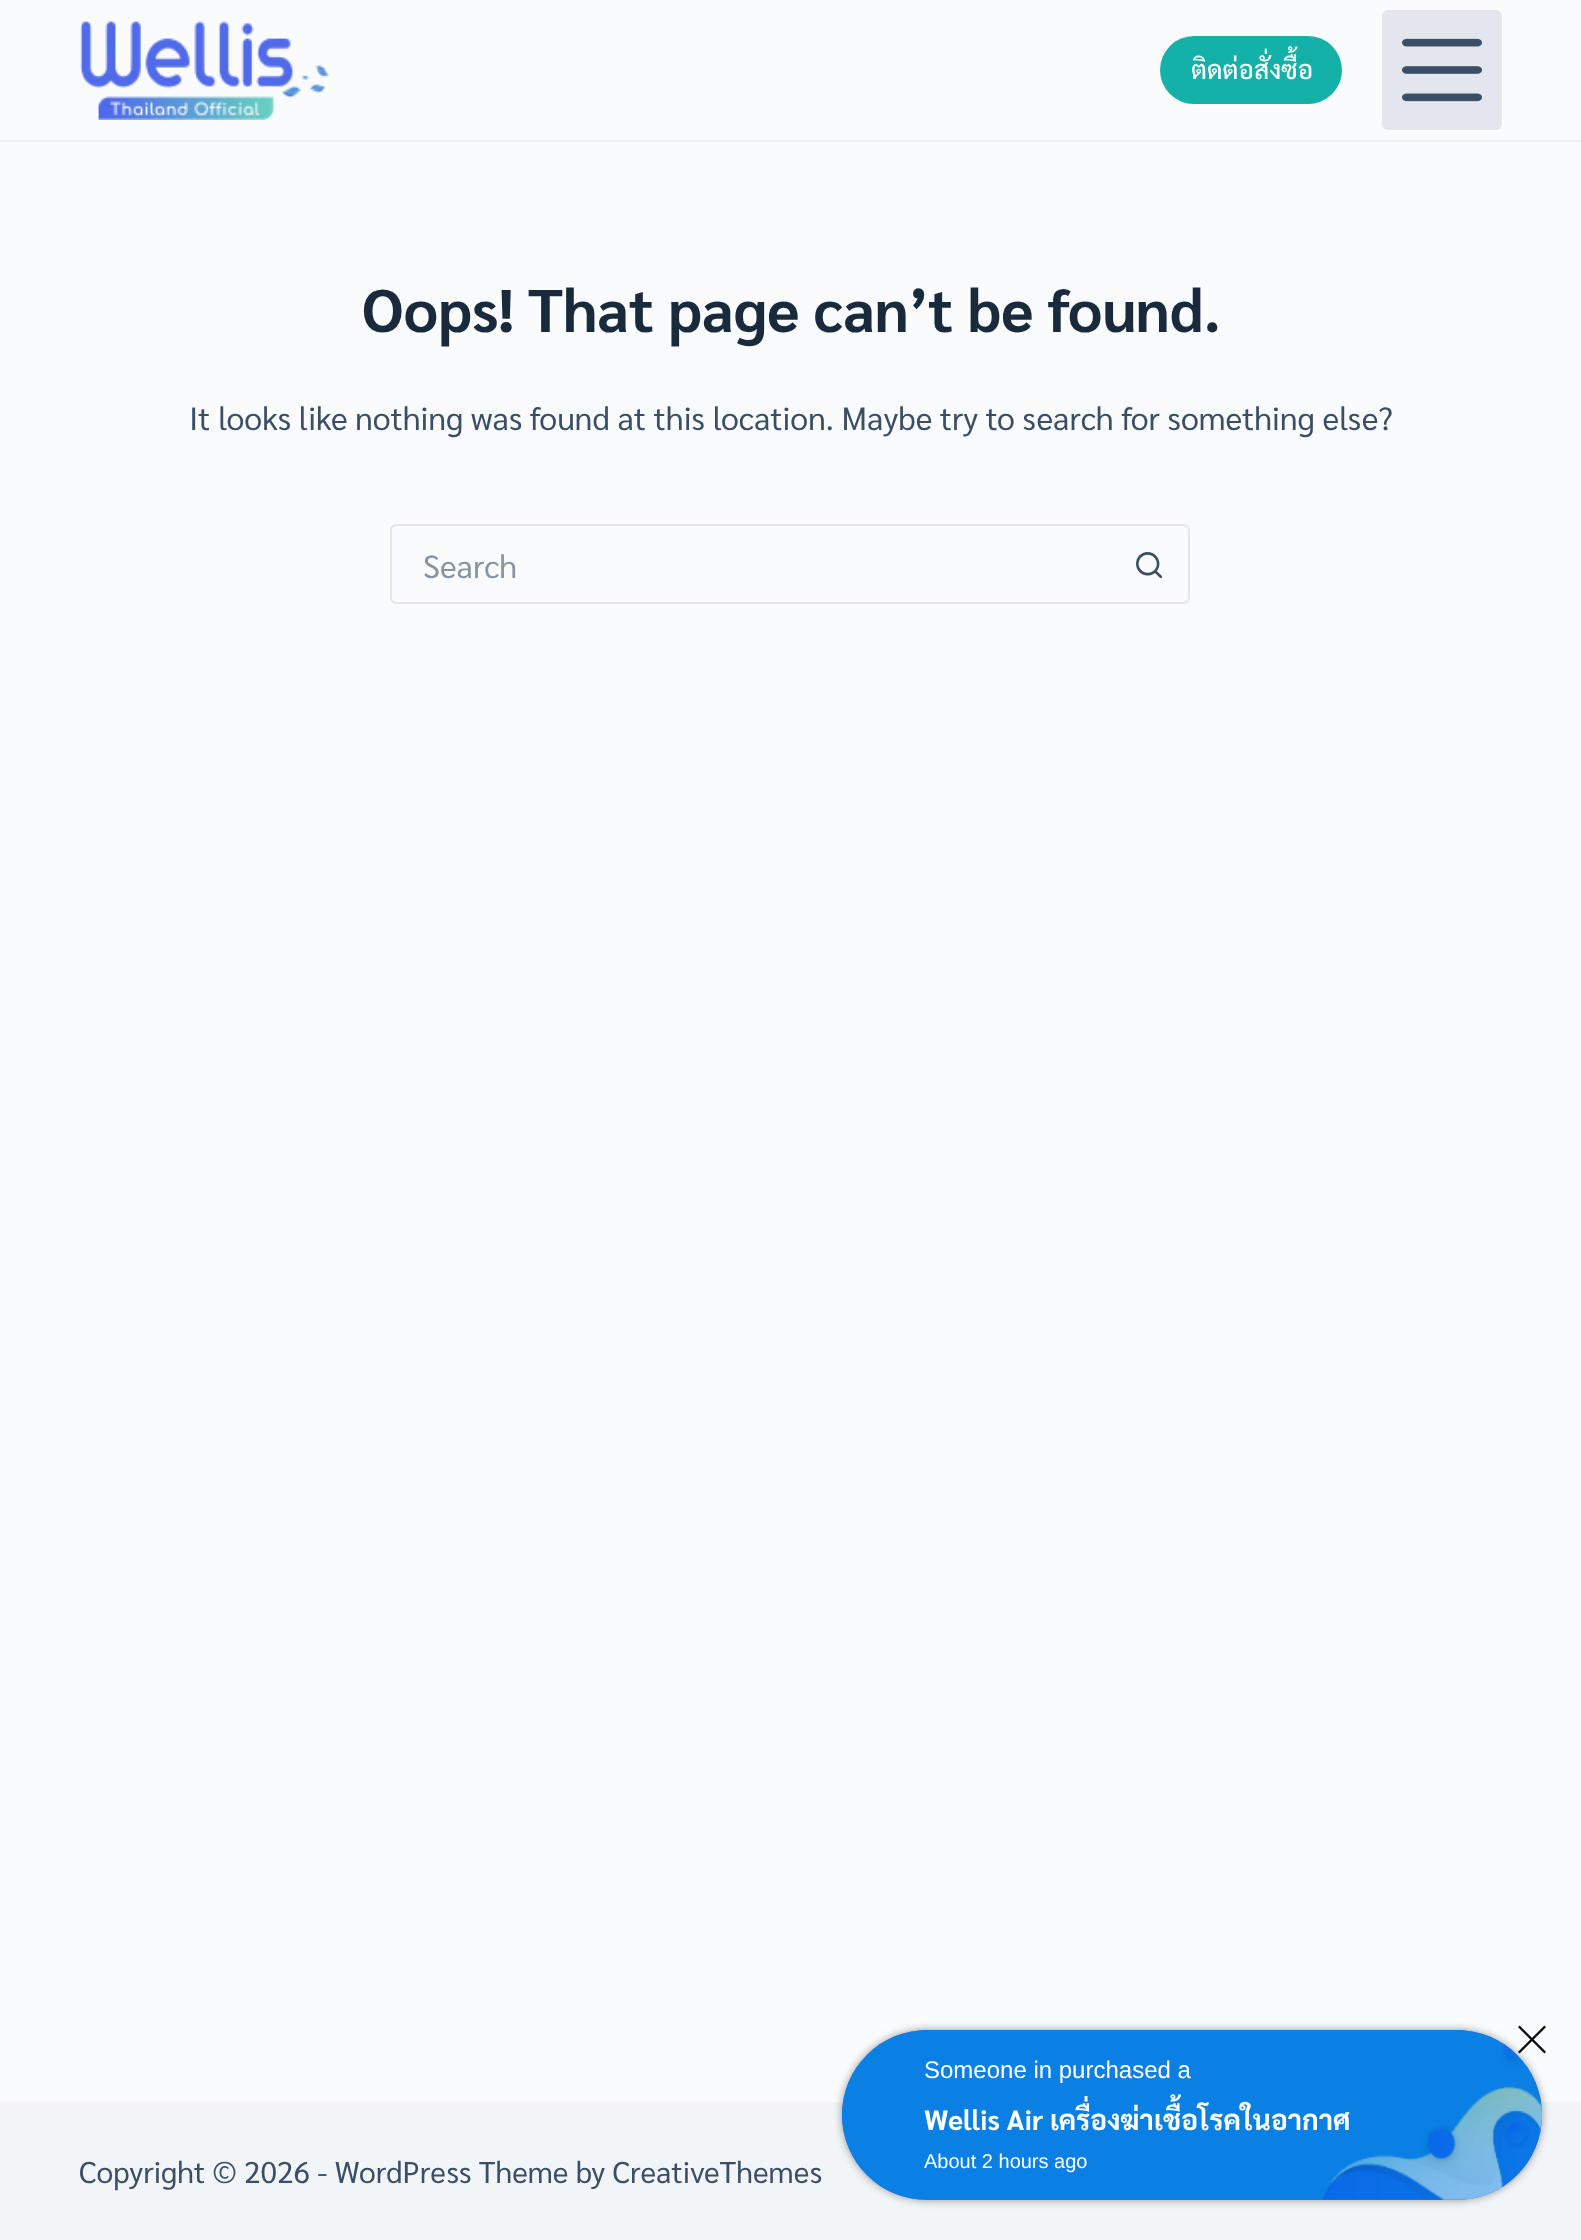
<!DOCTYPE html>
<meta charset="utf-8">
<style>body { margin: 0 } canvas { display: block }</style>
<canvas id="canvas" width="1581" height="2240"></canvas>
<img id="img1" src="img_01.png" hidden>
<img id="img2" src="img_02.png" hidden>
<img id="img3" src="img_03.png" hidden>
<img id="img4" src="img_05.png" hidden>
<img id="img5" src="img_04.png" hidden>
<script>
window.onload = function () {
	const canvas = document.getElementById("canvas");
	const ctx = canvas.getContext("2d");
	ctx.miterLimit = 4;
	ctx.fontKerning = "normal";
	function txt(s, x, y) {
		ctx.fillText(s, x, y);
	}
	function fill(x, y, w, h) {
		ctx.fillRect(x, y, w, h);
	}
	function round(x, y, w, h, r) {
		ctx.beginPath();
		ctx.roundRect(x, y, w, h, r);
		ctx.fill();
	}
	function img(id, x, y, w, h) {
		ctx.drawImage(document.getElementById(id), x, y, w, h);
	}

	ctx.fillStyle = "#FAFBFC";
	fill(0, 0, 1581, 2240);
	ctx.fillStyle = "#ECEEF0";
	fill(0, 140, 1581, 2);
	img("img1", 80, 21, 250, 99);
	ctx.fillStyle = "#14B1A9";
	round(1160, 36, 182, 68, 34);
	ctx.fillStyle = "#E3E7ED";
	round(1382, 10, 120, 120, 6);
	img("img2", 1402, 38, 80, 64);
	ctx.fillStyle = "#E1E8ED";
	ctx.beginPath();
	ctx.moveTo(396, 524);
	ctx.lineTo(1110, 524);
	ctx.lineTo(1110, 604);
	ctx.lineTo(396, 604);
	ctx.bezierCurveTo(393, 604, 390, 601, 390, 598);
	ctx.lineTo(390, 530);
	ctx.bezierCurveTo(390, 527, 393, 524, 396, 524);
	ctx.closePath();
	ctx.moveTo(396, 526);
	ctx.lineTo(1110, 526);
	ctx.lineTo(1110, 602);
	ctx.lineTo(396, 602);
	ctx.bezierCurveTo(394, 602, 392, 600, 392, 598);
	ctx.lineTo(392, 530);
	ctx.bezierCurveTo(392, 528, 394, 526, 396, 526);
	ctx.closePath();
	ctx.fill("evenodd");
	ctx.beginPath();
	ctx.moveTo(1110, 524);
	ctx.lineTo(1184, 524);
	ctx.bezierCurveTo(1187, 524, 1190, 527, 1190, 530);
	ctx.lineTo(1190, 598);
	ctx.bezierCurveTo(1190, 601, 1187, 604, 1184, 604);
	ctx.lineTo(1110, 604);
	ctx.closePath();
	ctx.moveTo(1110, 526);
	ctx.lineTo(1184, 526);
	ctx.bezierCurveTo(1186, 526, 1188, 528, 1188, 530);
	ctx.lineTo(1188, 598);
	ctx.bezierCurveTo(1188, 600, 1186, 602, 1184, 602);
	ctx.lineTo(1110, 602);
	ctx.closePath();
	ctx.fill("evenodd");
	img("img3", 1136, 552, 26, 26);
	ctx.fillStyle = "#F2F5F7";
	fill(0, 2102, 1581, 138);
	ctx.fillStyle = "rgba(0, 0, 0, 0.4)";
	ctx.filter = "blur(4px)";
	ctx.beginPath();
	ctx.roundRect(842, 2030, 700, 170, 85);
	ctx.fill();
	ctx.filter = "none";
	ctx.fillStyle = "#546CE1";
	round(842, 2030, 700, 170, 85);
	img("img4", 842, 2030, 700, 170);
	img("img5", 1518, 2025, 28, 29);
	ctx.font = "500 26px Sarabun";
	ctx.fillStyle = "#FFFFFF";
	txt("ติดต่อสั่งซื้อ", 1191, 79);
	ctx.font = "bold 60px Sarabun";
	ctx.fillStyle = "#192A3D";
	txt("Oops! That page can’t be found.", 362, 332);
	ctx.font = "32px Sarabun";
	ctx.fillStyle = "#3A4F66";
	txt("It looks like nothing was found at this location. Maybe try to search for something else?", 189, 430);
	ctx.fillStyle = "#8794A2";
	txt("Search", 423, 578);
	ctx.font = "30px Sarabun";
	ctx.fillStyle = "#3A4F66";
	txt("Copyright © 2026 - WordPress Theme by CreativeThemes", 79, 2183);
	ctx.font = "24px Liberation Sans";
	ctx.fillStyle = "#FFFFFF";
	txt("Someone in purchased a", 924, 2078);
	ctx.font = "bold 28px Sarabun";
	txt("Wellis Air เครื่องฆ่าเชื้อโรคในอากาศ", 924, 2130);
	ctx.font = "20px Liberation Sans";
	txt("About 2 hours ago", 924, 2168);
};
</script>
